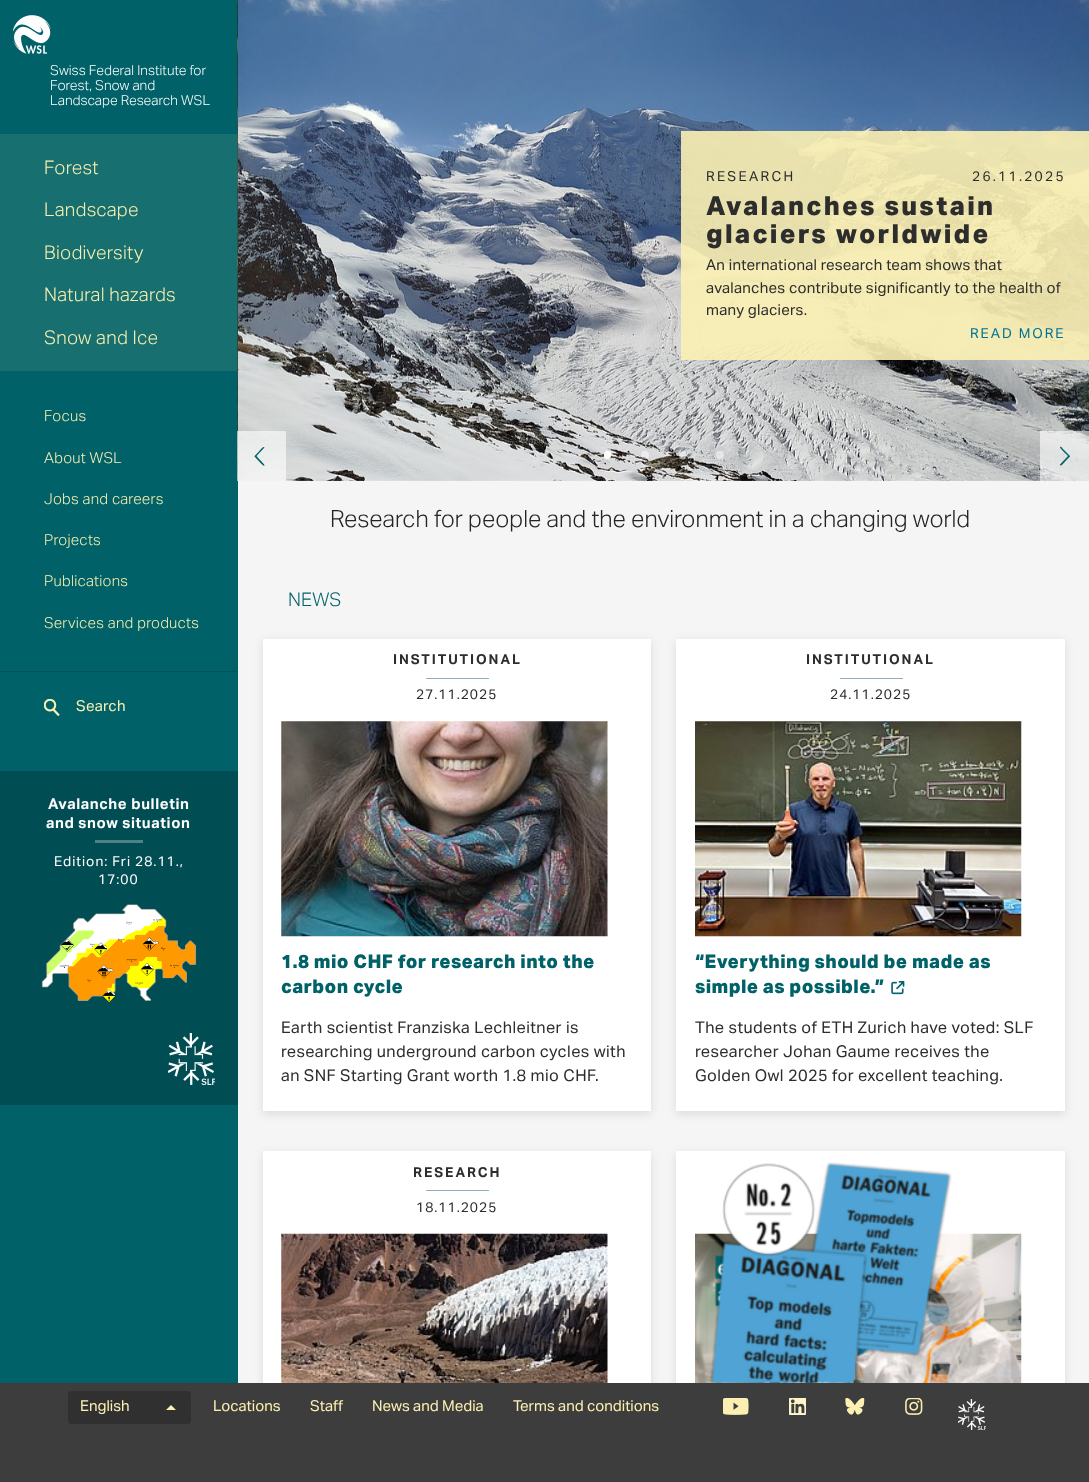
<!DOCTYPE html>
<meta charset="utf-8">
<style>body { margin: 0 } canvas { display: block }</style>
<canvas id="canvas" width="1089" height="1482"></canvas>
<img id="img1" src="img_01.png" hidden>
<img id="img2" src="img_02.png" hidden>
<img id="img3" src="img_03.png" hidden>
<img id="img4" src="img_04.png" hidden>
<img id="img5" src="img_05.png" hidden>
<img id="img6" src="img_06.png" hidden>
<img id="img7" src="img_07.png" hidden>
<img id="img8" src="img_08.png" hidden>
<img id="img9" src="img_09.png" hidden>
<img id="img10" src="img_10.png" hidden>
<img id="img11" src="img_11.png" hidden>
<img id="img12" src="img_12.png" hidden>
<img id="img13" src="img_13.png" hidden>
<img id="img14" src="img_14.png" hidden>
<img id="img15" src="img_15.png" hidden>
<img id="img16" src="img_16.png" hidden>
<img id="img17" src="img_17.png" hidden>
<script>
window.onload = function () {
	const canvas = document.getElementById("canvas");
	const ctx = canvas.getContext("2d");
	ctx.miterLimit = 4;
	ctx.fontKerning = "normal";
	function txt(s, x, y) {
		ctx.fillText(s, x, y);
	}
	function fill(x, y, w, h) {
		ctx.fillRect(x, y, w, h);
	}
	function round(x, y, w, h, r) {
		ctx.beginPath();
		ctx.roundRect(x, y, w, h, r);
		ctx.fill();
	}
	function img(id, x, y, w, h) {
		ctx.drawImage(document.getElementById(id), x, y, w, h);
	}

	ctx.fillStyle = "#F5F5F5";
	fill(0, 0, 1089, 1482);
	ctx.fillStyle = "#006268";
	fill(0, 0, 238, 1383);
	img("img1", 13, 15, 38, 39);
	ctx.fillStyle = "#176F6F";
	fill(0, 134, 238, 237);
	ctx.fillStyle = "#005358";
	fill(0, 671, 238, 1);
	img("img2", 44, 699, 16, 17);
	ctx.fillStyle = "#004E53";
	fill(0, 771, 238, 334);
	ctx.fillStyle = "#4D8387";
	fill(95, 840, 48, 3);
	img("img3", 41, 904, 156, 99);
	img("img4", 168, 1033, 47, 52);
	img("img5", 237, 0, 1, 482);
	img("img6", 238, 0, 851, 481);
	ctx.fillStyle = "rgba(255, 255, 255, 0.6)";
	fill(237, 431, 49, 50);
	ctx.fillStyle = "#006268";
	ctx.beginPath();
	ctx.moveTo(264, 448);
	ctx.bezierCurveTo(264.5, 448, 264.5, 447, 264, 447);
	ctx.bezierCurveTo(263, 446.5, 259.5, 450.5, 259, 451.5);
	ctx.lineTo(254.5, 456);
	ctx.lineTo(254.5, 456.5);
	ctx.lineTo(261.5, 464);
	ctx.bezierCurveTo(262, 464, 263.5, 466.5, 264.5, 465.5);
	ctx.bezierCurveTo(265, 464.5, 257.5, 457.5, 256.5, 456);
	ctx.closePath();
	ctx.fill("evenodd");
	ctx.fillStyle = "#FFFFFF";
	round(604, 451, 7, 8, 3.5);
	ctx.fillStyle = "rgba(255, 255, 255, 0.5)";
	ctx.beginPath();
	ctx.arc(645, 455, 4, 0, Math.PI * 2);
	ctx.fill();
	round(679, 451, 7, 8, 3.5);
	ctx.beginPath();
	ctx.arc(720, 455, 4, 0, Math.PI * 2);
	ctx.fill();
	ctx.fillStyle = "rgba(255, 255, 255, 0.6)";
	fill(1040, 431, 49, 50);
	ctx.fillStyle = "#006268";
	ctx.beginPath();
	ctx.moveTo(1060, 464.5);
	ctx.bezierCurveTo(1060, 464.5, 1060, 465.5, 1060.5, 465.5);
	ctx.bezierCurveTo(1061.5, 466, 1065, 462, 1065.5, 461);
	ctx.lineTo(1070, 456.5);
	ctx.lineTo(1070, 456);
	ctx.lineTo(1062.5, 448.5);
	ctx.bezierCurveTo(1062.5, 448.5, 1061, 446, 1060, 447);
	ctx.bezierCurveTo(1059.5, 448, 1067, 455, 1068, 456);
	ctx.closePath();
	ctx.fill("evenodd");
	ctx.fillStyle = "rgba(251, 240, 178, 0.9)";
	fill(681, 131, 408, 229);
	ctx.fillStyle = "rgba(0, 0, 0, 0.1)";
	ctx.filter = "blur(5px)";
	ctx.beginPath();
	ctx.rect(263, 641, 388, 473);
	ctx.fill();
	ctx.filter = "none";
	ctx.fillStyle = "#FFFFFF";
	fill(263, 639, 388, 472);
	ctx.fillStyle = "#8DAEC2";
	fill(426, 678, 63, 1);
	img("img7", 281, 721, 327, 216);
	ctx.fillStyle = "rgba(0, 0, 0, 0.1)";
	ctx.filter = "blur(5px)";
	ctx.beginPath();
	ctx.rect(676, 641, 389, 473);
	ctx.fill();
	ctx.filter = "none";
	ctx.fillStyle = "#FFFFFF";
	fill(676, 639, 389, 472);
	ctx.fillStyle = "#8DAEC2";
	fill(840, 678, 63, 1);
	img("img8", 695, 721, 327, 216);
	img("img9", 891, 981, 14, 14);
	ctx.fillStyle = "rgba(0, 0, 0, 0.1)";
	ctx.filter = "blur(5px)";
	ctx.beginPath();
	ctx.rect(263, 1154, 388, 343);
	ctx.fill();
	ctx.filter = "none";
	ctx.fillStyle = "#FFFFFF";
	fill(263, 1151, 388, 232);
	ctx.fillStyle = "#8DAEC2";
	fill(426, 1190, 63, 1);
	img("img10", 281, 1233, 327, 150);
	ctx.fillStyle = "rgba(0, 0, 0, 0.1)";
	ctx.filter = "blur(5px)";
	ctx.beginPath();
	ctx.rect(676, 1154, 389, 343);
	ctx.fill();
	ctx.filter = "none";
	ctx.fillStyle = "#FFFFFF";
	fill(676, 1151, 389, 232);
	img("img11", 695, 1233, 327, 150);
	ctx.fillStyle = "#3D3D3D";
	fill(0, 1383, 1089, 99);
	img("img12", 710, 1162, 242, 221);
	ctx.fillStyle = "#303030";
	round(68, 1391, 123, 33, 4);
	ctx.fillStyle = "#FBF0B2";
	ctx.beginPath();
	ctx.moveTo(176, 1410);
	ctx.lineTo(166, 1410);
	ctx.lineTo(171, 1405);
	ctx.closePath();
	ctx.fill();
	img("img13", 723, 1398, 26, 17);
	img("img14", 789, 1398, 17, 17);
	img("img15", 845, 1398, 20, 17);
	img("img16", 905, 1398, 18, 17);
	img("img17", 958, 1399, 28, 31);
	ctx.font = "13.75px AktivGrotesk";
	ctx.fillStyle = "#FFFFFF";
	txt("Swiss Federal Institute for", 50, 75);
	txt("Forest, Snow and", 50, 90);
	txt("Landscape Research WSL", 50, 105);
	ctx.letterSpacing = "0.25px";
	ctx.font = "18.75px AktivGrotesk";
	ctx.fillStyle = "#FBF0B2";
	txt("Forest", 44, 174);
	txt("Landscape", 44, 216);
	txt("Biodiversity", 44, 259);
	txt("Natural hazards", 44, 301);
	txt("Snow and Ice", 44, 344);
	ctx.font = "15px AktivGrotesk";
	txt("Focus", 44, 421);
	txt("About WSL", 44, 463);
	txt("Jobs and careers", 44, 504);
	txt("Projects", 44, 545);
	txt("Publications", 44, 586);
	txt("Services and products", 44, 628);
	ctx.font = "15px 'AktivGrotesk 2'";
	txt("Search", 76, 711);
	ctx.letterSpacing = "0.6px";
	ctx.font = "15px 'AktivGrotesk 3'";
	ctx.fillStyle = "#FFFFFF";
	txt("Avalanche bulletin", 48, 809);
	txt("and snow situation", 46, 828);
	ctx.letterSpacing = "1px";
	ctx.font = "13.75px 'AktivGrotesk 2'";
	txt("Edition: Fri 28.11.,", 54, 866);
	txt("17:00", 98, 884);
	ctx.letterSpacing = "2.25px";
	ctx.fillStyle = "#2D2D2D";
	txt("RESEARCH", 706, 181);
	txt("26.11.2025", 972, 181);
	ctx.font = "26.25px 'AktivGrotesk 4'";
	txt("Avalanches sustain", 706, 215);
	txt("glaciers worldwide", 706, 243);
	ctx.letterSpacing = "0.25px";
	ctx.font = "15px 'AktivGrotesk 2'";
	txt("An international research team shows that", 706, 270);
	txt("avalanches contribute significantly to the health of", 706, 293);
	txt("many glaciers.", 706, 315);
	ctx.letterSpacing = "1.9px";
	ctx.font = "13.75px 'AktivGrotesk 2'";
	ctx.fillStyle = "#007295";
	txt("READ MORE", 970, 338);
	ctx.letterSpacing = "0px";
	ctx.font = "23.75px AktivGrotesk";
	ctx.fillStyle = "#242425";
	txt("Research for people and the environment in a changing world", 330, 527);
	ctx.font = "18.75px AktivGrotesk";
	ctx.fillStyle = "#006268";
	txt("NEWS", 288, 606);
	ctx.letterSpacing = "1.9px";
	ctx.font = "13.75px 'AktivGrotesk 3'";
	ctx.fillStyle = "#2D2D2D";
	txt("INSTITUTIONAL", 393, 664);
	ctx.letterSpacing = "1px";
	ctx.font = "13.75px 'AktivGrotesk 2'";
	txt("27.11.2025", 416, 699);
	ctx.letterSpacing = "0.4px";
	ctx.font = "18.75px 'AktivGrotesk 4'";
	ctx.fillStyle = "#006268";
	txt("1.8 mio CHF for research into the", 281, 968);
	txt("carbon cycle", 281, 993);
	ctx.font = "16.25px 'AktivGrotesk 2'";
	ctx.fillStyle = "#2D2D2D";
	txt("Earth scientist Franziska Lechleitner is", 281, 1033);
	txt("researching underground carbon cycles with", 281, 1057);
	txt("an SNF Starting Grant worth 1.8 mio CHF.", 281, 1081);
	ctx.letterSpacing = "1.9px";
	ctx.font = "13.75px 'AktivGrotesk 3'";
	txt("INSTITUTIONAL", 806, 664);
	ctx.letterSpacing = "1px";
	ctx.font = "13.75px 'AktivGrotesk 2'";
	txt("24.11.2025", 830, 699);
	ctx.letterSpacing = "0.4px";
	ctx.font = "18.75px 'AktivGrotesk 4'";
	ctx.fillStyle = "#006268";
	txt("“Everything should be made as", 695, 968);
	txt("simple as possible.”", 695, 993);
	ctx.font = "16.25px 'AktivGrotesk 2'";
	ctx.fillStyle = "#2D2D2D";
	txt("The students of ETH Zurich have voted: SLF", 695, 1033);
	txt("researcher Johan Gaume receives the", 695, 1057);
	txt("Golden Owl 2025 for excellent teaching.", 695, 1081);
	ctx.letterSpacing = "1.9px";
	ctx.font = "13.75px 'AktivGrotesk 3'";
	txt("RESEARCH", 413, 1177);
	ctx.letterSpacing = "1px";
	ctx.font = "13.75px 'AktivGrotesk 2'";
	txt("18.11.2025", 416, 1212);
	ctx.letterSpacing = "0px";
	ctx.font = "15px 'AktivGrotesk 2'";
	ctx.fillStyle = "#FBF0B2";
	txt("English", 80, 1411);
	txt("Locations", 213, 1411);
	txt("Staff", 310, 1411);
	txt("News and Media", 372, 1411);
	txt("Terms and conditions", 513, 1411);
};
</script>
